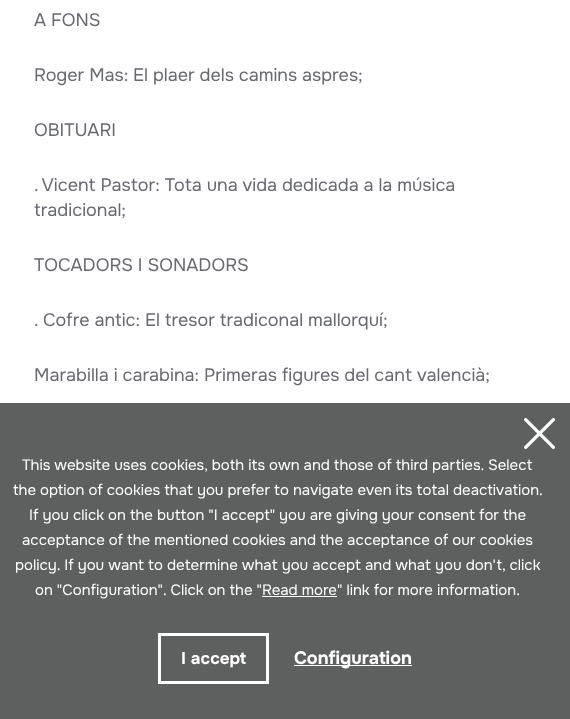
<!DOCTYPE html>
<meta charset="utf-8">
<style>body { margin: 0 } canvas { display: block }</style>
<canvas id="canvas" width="570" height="719"></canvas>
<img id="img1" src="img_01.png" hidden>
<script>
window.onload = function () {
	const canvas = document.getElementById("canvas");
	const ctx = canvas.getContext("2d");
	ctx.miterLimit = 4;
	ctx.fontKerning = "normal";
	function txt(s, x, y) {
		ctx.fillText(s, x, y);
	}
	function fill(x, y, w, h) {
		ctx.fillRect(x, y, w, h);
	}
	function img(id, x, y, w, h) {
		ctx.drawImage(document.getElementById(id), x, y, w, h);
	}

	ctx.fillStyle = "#FFFFFF";
	fill(0, 0, 570, 719);
	ctx.fillStyle = "#5E5F5F";
	fill(0, 403, 570, 316);
	img("img1", 524, 418, 31, 31);
	ctx.fillStyle = "#FFFFFF";
	fill(262, 596, 75, 1);
	ctx.strokeStyle = "#FFFFFF";
	ctx.lineWidth = 3;
	ctx.strokeRect(159.5, 634.5, 108, 48);
	fill(294, 665, 118, 1);
	ctx.font = "18px Onest";
	ctx.fillStyle = "#67696F";
	txt("A FONS", 34, 26);
	txt("Roger Mas: El plaer dels camins aspres;", 34, 81);
	txt("OBITUARI", 34, 136);
	txt(". Vicent Pastor: Tota una vida dedicada a la música", 34, 191);
	txt("tradicional;", 34, 216);
	txt("TOCADORS I SONADORS", 34, 271);
	txt(". Cofre antic: El tresor tradiconal mallorquí;", 34, 326);
	txt("Marabilla i carabina: Primeras figures del cant valencià;", 34, 381);
	ctx.font = "15px Onest";
	ctx.fillStyle = "#FFFFFF";
	txt("This website uses cookies, both its own and those of third parties. Select", 22, 470);
	txt("the option of cookies that you prefer to navigate even its total deactivation.", 13, 495);
	txt("If you click on the button \"I accept\" you are giving your consent for the", 29, 520);
	txt("acceptance of the mentioned cookies and the acceptance of our cookies", 22, 545);
	txt("policy. If you want to determine what you accept and what you don't, click", 15, 570);
	txt("on \"Configuration\". Click on the \"Read more\" link for more information.", 35, 595);
	ctx.font = "bold 17px Onest";
	txt("I accept", 181, 664);
	ctx.font = "bold 18px Onest";
	txt("Configuration", 294, 664);
};
</script>
